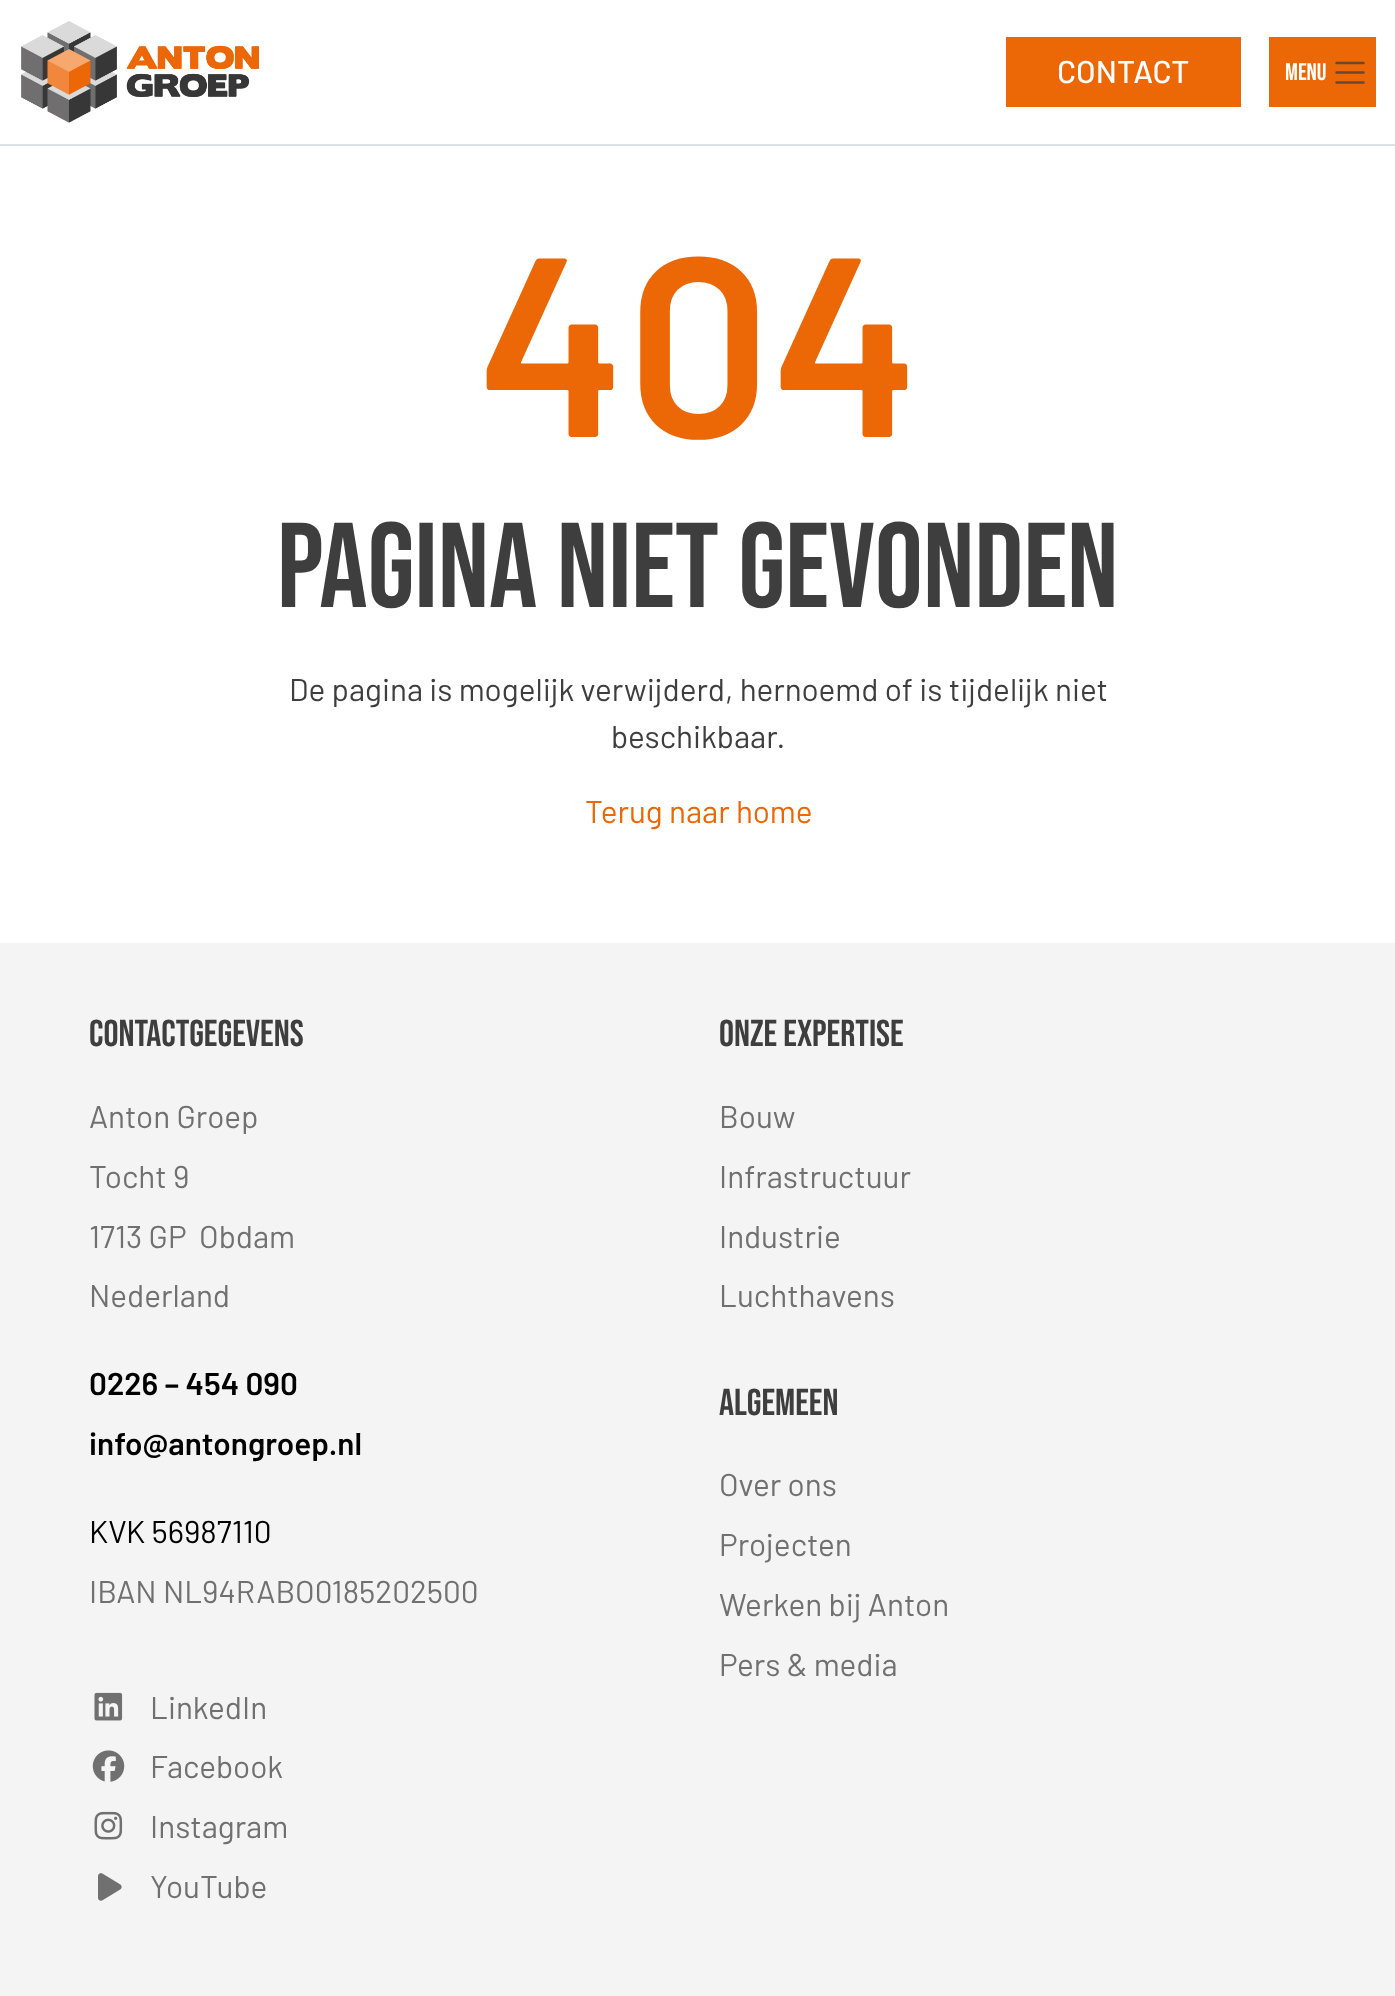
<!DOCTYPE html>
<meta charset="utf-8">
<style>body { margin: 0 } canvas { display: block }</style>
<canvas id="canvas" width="1395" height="1996"></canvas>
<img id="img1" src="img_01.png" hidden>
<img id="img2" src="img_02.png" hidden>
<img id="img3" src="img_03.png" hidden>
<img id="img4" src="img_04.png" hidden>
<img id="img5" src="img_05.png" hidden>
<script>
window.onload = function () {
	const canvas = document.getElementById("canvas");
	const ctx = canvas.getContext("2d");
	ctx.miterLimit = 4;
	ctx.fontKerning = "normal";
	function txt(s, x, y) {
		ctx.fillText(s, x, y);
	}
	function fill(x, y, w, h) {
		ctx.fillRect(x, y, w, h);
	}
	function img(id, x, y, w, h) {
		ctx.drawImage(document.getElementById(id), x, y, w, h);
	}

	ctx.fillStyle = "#FFFFFF";
	fill(0, 0, 1395, 1996);
	ctx.fillStyle = "#DEE2E6";
	fill(0, 144, 1395, 2);
	img("img1", 21, 21, 238, 102);
	ctx.fillStyle = "#EC6705";
	fill(1006, 37, 235, 70);
	fill(1269, 37, 107, 70);
	ctx.beginPath();
	ctx.moveTo(1336.5, 63);
	ctx.lineTo(1363.5, 63);
	ctx.moveTo(1336.5, 72.5);
	ctx.lineTo(1363.5, 72.5);
	ctx.moveTo(1336.5, 82.5);
	ctx.lineTo(1363.5, 82.5);
	ctx.strokeStyle = "#6A4830";
	ctx.lineWidth = 2.4;
	ctx.lineCap = "round";
	ctx.stroke();
	ctx.fillStyle = "#F4F4F4";
	fill(0, 943, 1395, 1053);
	img("img2", 94, 1692, 29, 29);
	img("img3", 92, 1750, 33, 32);
	img("img4", 94, 1811, 29, 29);
	img("img5", 98, 1873, 24, 28);
	ctx.font = "500 31.5px Barlow";
	ctx.fillStyle = "#FFFFFF";
	txt("CONTACT", 1057, 83);
	ctx.font = "24px Bebas Neue";
	txt("Menu", 1285, 80);
	ctx.font = "600 255px Barlow";
	ctx.fillStyle = "#EC6705";
	txt("404", 477, 437);
	ctx.font = "120.5px Bebas Neue";
	ctx.fillStyle = "#3E3E3E";
	txt("Pagina niet gevonden", 277, 607);
	ctx.font = "31.5px Barlow";
	txt("De pagina is mogelijk verwijderd, hernoemd of is tijdelijk niet", 289, 701);
	txt("beschikbaar.", 611, 748);
	ctx.fillStyle = "#EC6705";
	txt("Terug naar home", 585, 823);
	ctx.font = "37.5px Bebas Neue";
	ctx.fillStyle = "#3E3E3E";
	txt("Contactgegevens", 89, 1046);
	ctx.font = "31.5px Barlow";
	ctx.fillStyle = "#707070";
	txt("Anton Groep", 89, 1128);
	txt("Tocht 9", 89, 1188);
	txt("1713 GP  Obdam", 89, 1248);
	txt("Nederland", 89, 1307);
	ctx.font = "600 31.5px Barlow";
	ctx.fillStyle = "#000000";
	txt("0226 – 454 090", 89, 1395);
	txt("info@antongroep.nl", 89, 1455);
	ctx.font = "31.5px Barlow";
	txt("KVK 56987110", 89, 1543);
	ctx.fillStyle = "#707070";
	txt("IBAN NL94RABO0185202500", 89, 1603);
	txt("LinkedIn", 150, 1719);
	txt("Facebook", 150, 1778);
	txt("Instagram", 150, 1838);
	txt("YouTube", 150, 1898);
	ctx.font = "37.5px Bebas Neue";
	ctx.fillStyle = "#3E3E3E";
	txt("Onze expertise", 719, 1046);
	ctx.font = "31.5px Barlow";
	ctx.fillStyle = "#707070";
	txt("Bouw", 719, 1128);
	txt("Infrastructuur", 719, 1188);
	txt("Industrie", 719, 1248);
	txt("Luchthavens", 719, 1307);
	ctx.font = "37.5px Bebas Neue";
	ctx.fillStyle = "#3E3E3E";
	txt("Algemeen", 719, 1415);
	ctx.font = "31.5px Barlow";
	ctx.fillStyle = "#707070";
	txt("Over ons", 719, 1496);
	txt("Projecten", 719, 1556);
	txt("Werken bij Anton", 719, 1616);
	txt("Pers & media", 719, 1676);
};
</script>
